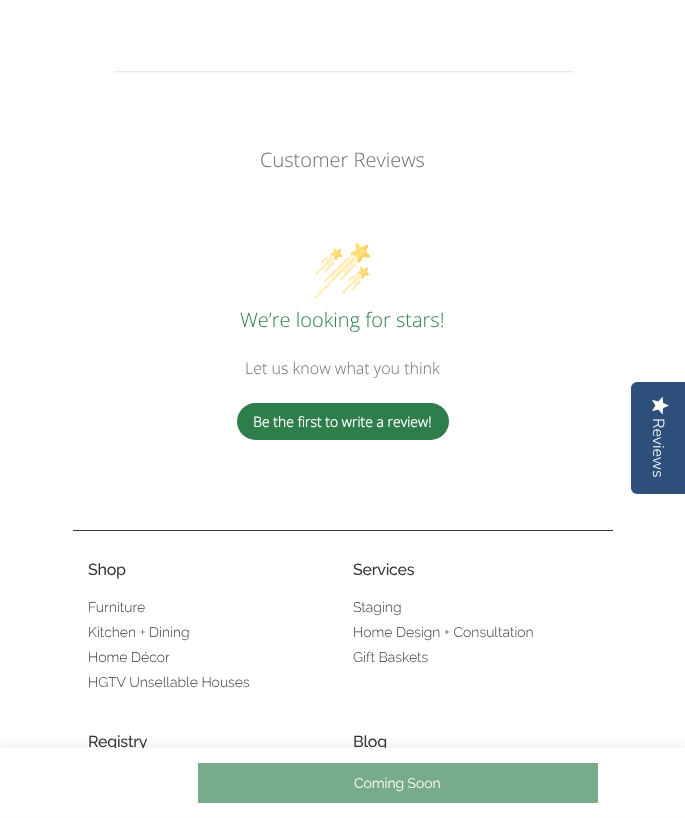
<!DOCTYPE html>
<meta charset="utf-8">
<style>body { margin: 0 } canvas { display: block }</style>
<canvas id="canvas" width="685" height="818"></canvas>
<img id="img1" src="img_01.png" hidden>
<img id="img2" src="img_02.png" hidden>
<img id="img3" src="img_03.png" hidden>
<script>
window.onload = function () {
	const canvas = document.getElementById("canvas");
	const ctx = canvas.getContext("2d");
	ctx.miterLimit = 4;
	ctx.fontKerning = "normal";
	function txt(s, x, y) {
		ctx.fillText(s, x, y);
	}
	function fill(x, y, w, h) {
		ctx.fillRect(x, y, w, h);
	}
	function round(x, y, w, h, r) {
		ctx.beginPath();
		ctx.roundRect(x, y, w, h, r);
		ctx.fill();
	}
	function img(id, x, y, w, h) {
		ctx.drawImage(document.getElementById(id), x, y, w, h);
	}

	ctx.fillStyle = "#FFFFFF";
	fill(0, 0, 685, 818);
	img("img1", 114, 71, 459, 2);
	img("img2", 315, 243, 55, 55);
	ctx.fillStyle = "#2E7E4B";
	round(237, 403, 212, 37, 18.5);
	ctx.fillStyle = "rgba(0, 0, 0, 0.05)";
	ctx.filter = "blur(5px)";
	ctx.beginPath();
	ctx.rect(0, 743, 685, 70);
	ctx.fill();
	ctx.filter = "none";
	ctx.fillStyle = "#363636";
	fill(73, 530, 540, 1);
	ctx.fillStyle = "#2E4F7C";
	ctx.beginPath();
	ctx.moveTo(685, 382);
	ctx.lineTo(685, 494);
	ctx.lineTo(637, 494);
	ctx.bezierCurveTo(634, 494, 631, 491, 631, 488);
	ctx.lineTo(631, 388);
	ctx.bezierCurveTo(631, 385, 634, 382, 637, 382);
	ctx.closePath();
	ctx.fill();
	img("img3", 652, 396, 17, 19);
	ctx.font = "300 20px Open Sans";
	ctx.fillStyle = "#6B6D76";
	txt("Customer Reviews", 260, 167);
	ctx.fillStyle = "#2E7E4B";
	txt("We’re looking for stars!", 240, 327);
	ctx.font = "300 16px Open Sans";
	ctx.fillStyle = "#6B6D76";
	txt("Let us know what you think", 245, 374);
	ctx.font = "bold 14px Open Sans";
	ctx.fillStyle = "#FFFFFF";
	txt("Be the first to write a review!", 253, 427);
	ctx.letterSpacing = "-0.25px";
	ctx.font = "500 16px Raleway";
	ctx.fillStyle = "#363636";
	txt("Shop", 88, 575);
	ctx.letterSpacing = "0px";
	ctx.font = "300 14px Raleway";
	txt("Furniture", 88, 612);
	txt("Kitchen + Dining", 88, 637);
	txt("Home Décor", 88, 662);
	txt("HGTV Unsellable Houses", 88, 687);
	ctx.letterSpacing = "-0.25px";
	ctx.font = "500 16px Raleway";
	txt("Registry", 88, 747);
	txt("Services", 353, 575);
	ctx.letterSpacing = "0px";
	ctx.font = "300 14px Raleway";
	txt("Staging", 353, 612);
	txt("Home Design + Consultation", 353, 637);
	txt("Gift Baskets", 353, 662);
	ctx.letterSpacing = "-0.25px";
	ctx.font = "500 16px Raleway";
	txt("Blog", 353, 747);
	ctx.fillStyle = "#FFFFFF";
	fill(0, 748, 685, 69);
	ctx.fillStyle = "#77AB8A";
	fill(198, 763, 400, 40);
	ctx.letterSpacing = "-0.1px";
	ctx.font = "14px Raleway";
	ctx.fillStyle = "#FFFFFF";
	txt("Coming Soon", 354, 788);
	ctx.letterSpacing = "0px";
	ctx.font = "300 16px Nunito Sans";
	ctx.save();
	ctx.translate(653, 418);
	ctx.rotate(90 * Math.PI / 180);
	ctx.fillText("Reviews", 0, 0);
	ctx.restore();
};
</script>
